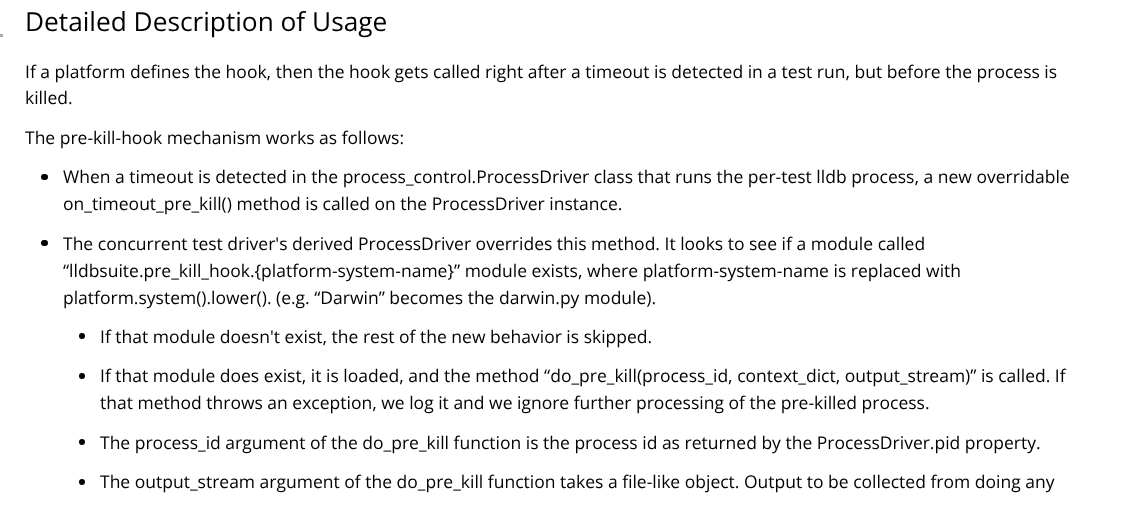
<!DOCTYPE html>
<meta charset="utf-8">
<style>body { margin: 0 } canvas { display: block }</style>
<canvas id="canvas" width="1124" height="509"></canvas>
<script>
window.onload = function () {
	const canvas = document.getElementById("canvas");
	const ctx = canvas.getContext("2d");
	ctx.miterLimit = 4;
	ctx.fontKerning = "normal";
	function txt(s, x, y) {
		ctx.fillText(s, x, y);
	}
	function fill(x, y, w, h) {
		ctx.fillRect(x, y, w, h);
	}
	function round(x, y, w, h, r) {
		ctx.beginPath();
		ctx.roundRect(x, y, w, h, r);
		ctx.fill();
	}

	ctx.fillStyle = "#FFFFFF";
	fill(0, 0, 1124, 509);
	ctx.fillStyle = "#AAAAAA";
	fill(0, 34, 3, 3);
	ctx.fillStyle = "#000000";
	round(41, 174, 7, 6, 3);
	round(41, 240, 7, 6, 3);
	ctx.beginPath();
	ctx.arc(82, 336, 3, 0, Math.PI * 2);
	ctx.fill();
	ctx.beginPath();
	ctx.arc(82, 376, 3, 0, Math.PI * 2);
	ctx.fill();
	ctx.beginPath();
	ctx.arc(82, 442, 3, 0, Math.PI * 2);
	ctx.fill();
	ctx.beginPath();
	ctx.arc(82, 482, 3, 0, Math.PI * 2);
	ctx.fill();
	ctx.font = "26.25px Open Sans";
	txt("Detailed Description of Usage", 25, 31);
	ctx.font = "17.5px Open Sans";
	txt("If a platform defines the hook, then the hook gets called right after a timeout is detected in a test run, but before the process is", 25, 78);
	txt("killed.", 25, 104);
	txt("The pre-kill-hook mechanism works as follows:", 25, 144);
	txt("When a timeout is detected in the process_control.ProcessDriver class that runs the per-test lldb process, a new overridable", 63, 183);
	txt("on_timeout_pre_kill() method is called on the ProcessDriver instance.", 63, 210);
	txt("The concurrent test driver's derived ProcessDriver overrides this method. It looks to see if a module called", 63, 250);
	txt("“lldbsuite.pre_kill_hook.{platform-system-name}” module exists, where platform-system-name is replaced with", 63, 277);
	txt("platform.system().lower(). (e.g. “Darwin” becomes the darwin.py module).", 63, 304);
	txt("If that module doesn't exist, the rest of the new behavior is skipped.", 100, 343);
	txt("If that module does exist, it is loaded, and the method “do_pre_kill(process_id, context_dict, output_stream)” is called. If", 100, 382);
	txt("that method throws an exception, we log it and we ignore further processing of the pre-killed process.", 100, 409);
	txt("The process_id argument of the do_pre_kill function is the process id as returned by the ProcessDriver.pid property.", 100, 449);
	txt("The output_stream argument of the do_pre_kill function takes a file-like object. Output to be collected from doing any", 100, 488);
};
</script>
